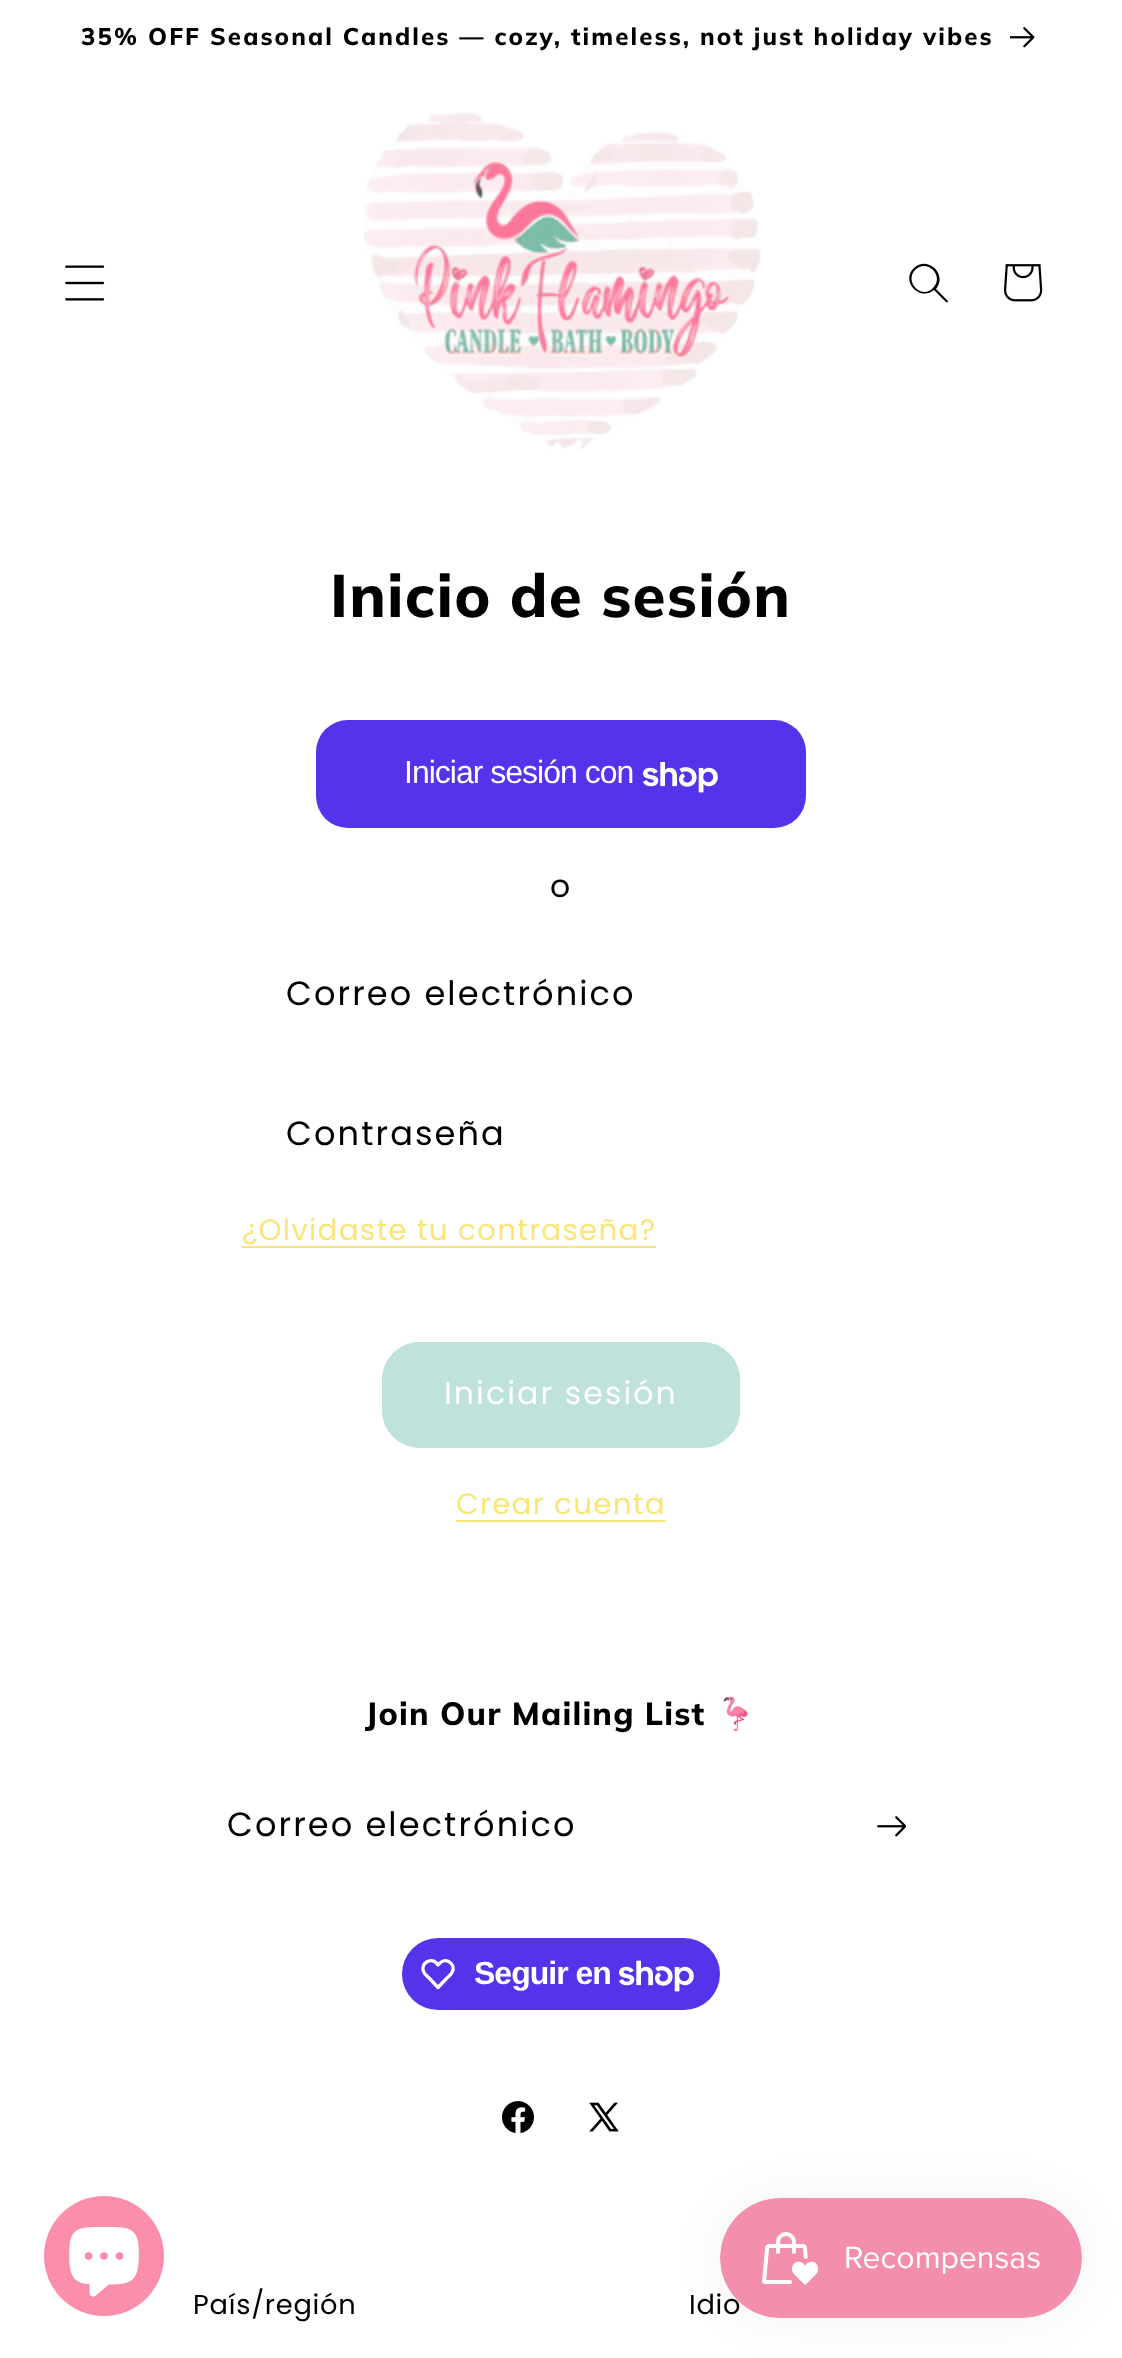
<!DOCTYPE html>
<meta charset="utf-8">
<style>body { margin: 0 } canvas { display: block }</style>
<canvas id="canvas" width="1122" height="2358"></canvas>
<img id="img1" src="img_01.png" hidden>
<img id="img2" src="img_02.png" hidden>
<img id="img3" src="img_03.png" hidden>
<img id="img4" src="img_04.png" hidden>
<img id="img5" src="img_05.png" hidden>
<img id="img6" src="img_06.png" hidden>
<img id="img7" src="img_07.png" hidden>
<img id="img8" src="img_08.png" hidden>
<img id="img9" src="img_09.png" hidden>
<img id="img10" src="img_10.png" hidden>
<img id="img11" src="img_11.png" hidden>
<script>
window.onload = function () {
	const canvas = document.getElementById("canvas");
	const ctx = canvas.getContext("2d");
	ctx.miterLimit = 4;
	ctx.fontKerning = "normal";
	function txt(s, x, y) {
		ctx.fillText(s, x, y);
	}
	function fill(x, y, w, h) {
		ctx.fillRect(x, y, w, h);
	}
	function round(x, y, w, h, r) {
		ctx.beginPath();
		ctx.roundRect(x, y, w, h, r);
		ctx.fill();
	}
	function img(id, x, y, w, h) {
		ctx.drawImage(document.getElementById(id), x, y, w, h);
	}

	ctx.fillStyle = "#FFFFFF";
	fill(0, 0, 1122, 2358);
	img("img1", 1010, 27, 25, 21);
	img("img2", 65, 265, 40, 36);
	img("img3", 363, 112, 399, 338);
	ctx.fillStyle = "#000000";
	ctx.beginPath();
	ctx.moveTo(933, 288);
	ctx.bezierCurveTo(922, 300, 904, 282, 915, 270);
	ctx.bezierCurveTo(927, 258, 945, 276, 933, 288);
	ctx.moveTo(934, 290);
	ctx.bezierCurveTo(920, 302, 900, 281, 914, 268);
	ctx.bezierCurveTo(928, 255, 948, 275, 936, 289);
	ctx.lineTo(948, 301);
	ctx.bezierCurveTo(948, 302, 947, 303, 946, 302);
	ctx.closePath();
	ctx.fill("evenodd");
	img("img4", 1004, 264, 39, 38);
	ctx.fillStyle = "#5433EB";
	round(316, 720, 490, 108, 32);
	img("img5", 643, 762, 75, 31);
	ctx.fillStyle = "#F8E678";
	fill(242, 1246, 414, 2);
	ctx.fillStyle = "#BFE2DD";
	round(382, 1342, 358, 106, 38);
	ctx.beginPath();
	ctx.roundRect(385, 1345, 352, 100, 35);
	ctx.strokeStyle = "#BFE2DD";
	ctx.lineWidth = 6;
	ctx.stroke();
	ctx.fillStyle = "#F8E678";
	fill(456, 1520, 210, 2);
	ctx.fillStyle = "#FA8EAB";
	ctx.beginPath();
	ctx.arc(104, 2256, 60, 0, Math.PI * 2);
	ctx.fill();
	img("img6", 69, 2227, 70, 70);
	img("img7", 877, 1816, 29, 21);
	ctx.fillStyle = "#5433EB";
	round(402, 1938, 318, 72, 36);
	ctx.beginPath();
	ctx.moveTo(436.5, 1963);
	ctx.lineTo(438, 1965);
	ctx.bezierCurveTo(439.5, 1963.5, 441, 1961.5, 443, 1961);
	ctx.bezierCurveTo(449, 1959, 455, 1965.5, 452.5, 1971.5);
	ctx.bezierCurveTo(451.5, 1974.5, 448.5, 1976.5, 446.5, 1978.5);
	ctx.lineTo(438, 1987.5);
	ctx.lineTo(429.5, 1978.5);
	ctx.bezierCurveTo(427.5, 1976.5, 424.5, 1974.5, 423.5, 1971.5);
	ctx.bezierCurveTo(420.5, 1963.5, 430.5, 1957, 436.5, 1963);
	ctx.closePath();
	ctx.strokeStyle = "#FFFFFF";
	ctx.lineWidth = 3.3;
	ctx.lineJoin = "round";
	ctx.stroke();
	img("img8", 619, 1960, 75, 32);
	img("img9", 502, 2101, 32, 32);
	img("img10", 589, 2102, 30, 30);
	ctx.fillStyle = "rgba(0, 0, 0, 0.05)";
	ctx.filter = "blur(25px)";
	ctx.beginPath();
	ctx.roundRect(720, 2198, 362, 120, 60);
	ctx.fill();
	ctx.filter = "none";
	ctx.letterSpacing = "2.1px";
	ctx.font = "800 24px Muli";
	ctx.fillStyle = "#000000";
	txt("35% OFF Seasonal Candles — cozy, timeless, not just holiday vibes", 81, 45);
	ctx.letterSpacing = "1.2px";
	ctx.font = "800 60px Muli";
	txt("Inicio de sesión", 330, 617);
	ctx.letterSpacing = "-1px";
	ctx.font = "32px Liberation Sans";
	ctx.fillStyle = "#FFFFFF";
	txt("Iniciar sesión con", 404, 783);
	ctx.letterSpacing = "1.25px";
	ctx.font = "31.5px Poppins";
	ctx.fillStyle = "#000000";
	txt("o", 550, 897);
	ctx.letterSpacing = "2.1px";
	ctx.font = "33.6px Poppins";
	txt("Correo electrónico", 286, 1005);
	txt("Contraseña", 286, 1145);
	ctx.letterSpacing = "1.25px";
	ctx.font = "29.4px Poppins";
	ctx.fillStyle = "#F8E678";
	txt("¿Olvidaste tu contraseña?", 242, 1240);
	ctx.letterSpacing = "2.1px";
	ctx.font = "31.5px Poppins";
	ctx.fillStyle = "#FFFFFF";
	txt("Iniciar sesión", 444, 1404);
	ctx.letterSpacing = "1.25px";
	ctx.font = "29.4px Poppins";
	ctx.fillStyle = "#F8E678";
	txt("Crear cuenta", 456, 1514);
	ctx.letterSpacing = "1.2px";
	ctx.font = "800 32px Muli";
	ctx.fillStyle = "#000000";
	txt("Join Our Mailing List", 365, 1725);
	ctx.font = "bold 32px Noto Color Emoji";
	txt("🦩", 716, 1725);
	ctx.letterSpacing = "2.1px";
	ctx.font = "33.6px Poppins";
	txt("Correo electrónico", 227, 1836);
	ctx.letterSpacing = "-1px";
	ctx.font = "bold 32px Liberation Sans";
	ctx.fillStyle = "#FFFFFF";
	txt("Seguir en", 474, 1984);
	ctx.letterSpacing = "0.75px";
	ctx.font = "27.25px Poppins";
	ctx.fillStyle = "#000000";
	txt("País/región", 193, 2314);
	txt("Idio", 689, 2314);
	img("img11", 720, 2198, 362, 120);
};
</script>
